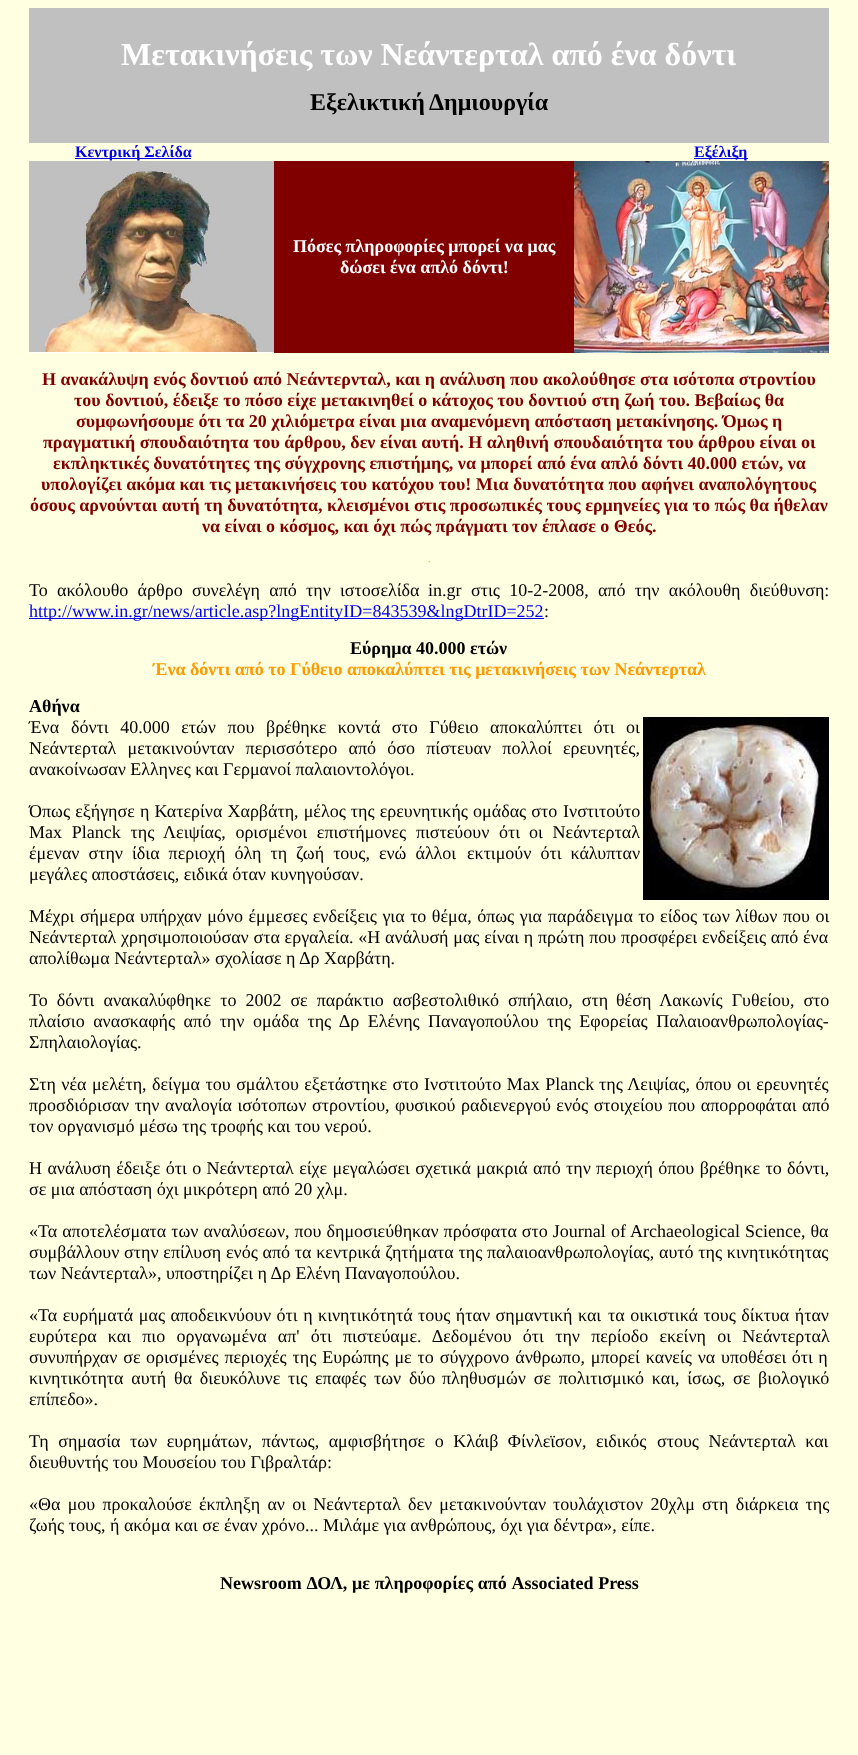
<!DOCTYPE html>
<meta charset="utf-8">
<style>body { margin: 0 } canvas { display: block }</style>
<canvas id="canvas" width="858" height="1755"></canvas>
<img id="img1" src="img_01.png" hidden>
<img id="img2" src="img_02.png" hidden>
<img id="img3" src="img_03.png" hidden>
<script>
window.onload = function () {
	const canvas = document.getElementById("canvas");
	const ctx = canvas.getContext("2d");
	ctx.miterLimit = 4;
	ctx.fontKerning = "normal";
	function txt(s, x, y) {
		ctx.fillText(s, x, y);
	}
	function fill(x, y, w, h) {
		ctx.fillRect(x, y, w, h);
	}
	function img(id, x, y, w, h) {
		ctx.drawImage(document.getElementById(id), x, y, w, h);
	}

	ctx.fillStyle = "#FFFFE1";
	fill(0, 0, 858, 1755);
	ctx.fillStyle = "#C0C0C0";
	fill(29, 8, 800, 135);
	ctx.fillStyle = "#0000EE";
	fill(75, 158, 116, 1);
	fill(694, 158, 54, 1);
	ctx.fillStyle = "#FFFFFF";
	fill(29, 352, 245, 1);
	img("img1", 29, 161, 245, 191);
	ctx.fillStyle = "#800000";
	fill(274, 161, 300, 192);
	img("img2", 574, 161, 255, 192);
	ctx.fillStyle = "#0000EE";
	fill(29, 618, 515, 1);
	img("img3", 643, 717, 186, 183);
	ctx.font = "bold 32px Liberation Serif";
	ctx.fillStyle = "#FFFFFF";
	txt("Μετακινήσεις των Νεάντερταλ από ένα δόντι", 121, 65);
	ctx.font = "bold 24px Liberation Serif";
	ctx.fillStyle = "#000000";
	txt("Εξελικτική", 310, 110);
	txt("Δημιουργία", 429, 110);
	ctx.font = "bold 16px Liberation Serif";
	ctx.fillStyle = "#0000EE";
	txt("Κεντρική Σελίδα", 75, 157);
	txt("Εξέλιξη", 694, 157);
	ctx.font = "bold 18px Liberation Serif";
	ctx.fillStyle = "#FFFFFF";
	txt("Πόσες πληροφορίες μπορεί να μας", 293, 252);
	txt("δώσει ένα απλό δόντι!", 340, 273);
	ctx.fillStyle = "#800000";
	txt("Η ανακάλυψη ενός δοντιού από Νεάντερνταλ, και η ανάλυση που ακολούθησε στα ισότοπα στροντίου", 42, 385);
	txt("του δοντιού, έδειξε το πόσο είχε μετακινηθεί ο κάτοχος του δοντιού στη ζωή του. Βεβαίως θα", 74, 406);
	txt("συμφωνήσουμε ότι τα 20 χιλιόμετρα είναι μια αναμενόμενη απόσταση μετακίνησης. Όμως η", 76, 427);
	txt("πραγματική σπουδαιότητα του άρθρου, δεν είναι αυτή. Η αληθινή σπουδαιότητα του άρθρου είναι οι", 43, 448);
	txt("εκπληκτικές δυνατότητες της σύγχρονης επιστήμης, να μπορεί από ένα απλό δόντι 40.000 ετών, να", 53, 469);
	txt("υπολογίζει ακόμα και τις μετακινήσεις του κατόχου του! Μια δυνατότητα που αφήνει αναπολόγητους", 41, 490);
	txt("όσους αρνούνται αυτή τη δυνατότητα, κλεισμένοι στις προσωπικές τους ερμηνείες για το πώς θα ήθελαν", 30, 511);
	txt("να είναι ο κόσμος, και όχι πώς πράγματι τον έπλασε ο Θεός.", 202, 532);
	ctx.font = "10px Liberation Serif";
	ctx.fillStyle = "#FF9900";
	txt(".", 428, 562);
	ctx.wordSpacing = "4.75px";
	ctx.font = "18px Liberation Serif";
	ctx.fillStyle = "#000000";
	txt("Το ακόλουθο άρθρο", 29, 596);
	txt("συνελέγη από την", 192, 596);
	ctx.wordSpacing = "0px";
	txt("ιστοσελίδα", 340, 596);
	txt("in.gr", 428, 596);
	ctx.wordSpacing = "4.75px";
	txt("στις 10-2-2008, από την ακόλουθη διεύθυνση:", 471, 596);
	ctx.wordSpacing = "0px";
	ctx.fillStyle = "#0000EE";
	txt("http://www.in.gr/news/article.asp?lngEntityID=843539&lngDtrID=252", 29, 617);
	ctx.fillStyle = "#000000";
	txt(":", 544, 617);
	ctx.font = "bold 18px Liberation Serif";
	txt("Εύρημα 40.000 ετών", 350, 654);
	ctx.fillStyle = "#FF9900";
	txt("Ένα δόντι από το Γύθειο αποκαλύπτει τις μετακινήσεις των Νεάντερταλ", 153, 675);
	ctx.fillStyle = "#000000";
	txt("Αθήνα", 29, 712);
	ctx.font = "18px Liberation Serif";
	txt("Ένα", 29, 733);
	ctx.wordSpacing = "7px";
	txt("δόντι 40.000 ετών που βρέθηκε κοντά στο Γύθειο αποκαλύπτει ότι οι", 71, 733);
	ctx.wordSpacing = "6.75px";
	txt("Νεάντερταλ μετακινούνταν περισσότερο από όσο πίστευαν πολλοί ερευνητές,", 29, 754);
	ctx.wordSpacing = "0px";
	txt("ανακοίνωσαν Ελληνες και Γερμανοί παλαιοντολόγοι.", 29, 775);
	ctx.wordSpacing = "0.6px";
	txt("Όπως εξήγησε η Κατερίνα Χαρβάτη, μέλος της ερευνητικής ομάδας στο", 29, 817);
	ctx.wordSpacing = "0px";
	txt("Ινστιτούτο", 563, 817);
	ctx.wordSpacing = "5.25px";
	txt("Max Planck της Λειψίας, ορισμένοι επιστήμονες πιστεύουν ότι", 29, 838);
	txt("οι Νεάντερταλ", 529, 838);
	ctx.wordSpacing = "4.5px";
	txt("έμεναν στην ίδια περιοχή όλη τη ζωή τους, ενώ άλλοι", 29, 859);
	txt("εκτιμούν ότι κάλυπταν", 467, 859);
	ctx.wordSpacing = "0px";
	txt("μεγάλες αποστάσεις, ειδικά όταν κυνηγούσαν.", 29, 880);
	ctx.wordSpacing = "1px";
	txt("Μέχρι σήμερα υπήρχαν μόνο έμμεσες ενδείξεις για το θέμα, όπως για", 29, 922);
	txt("παράδειγμα το είδος των λίθων που οι", 548, 922);
	ctx.wordSpacing = "0.25px";
	txt("Νεάντερταλ χρησιμοποιούσαν στα εργαλεία. «Η ανάλυσή μας είναι η πρώτη που προσφέρει ενδείξεις από ένα", 29, 943);
	ctx.wordSpacing = "0px";
	txt("απολίθωμα Νεάντερταλ» σχολίασε η Δρ Χαρβάτη.", 29, 964);
	ctx.wordSpacing = "4.5px";
	txt("Το δόντι ανακαλύφθηκε το 2002 σε παράκτιο ασβεστολιθικό σπήλαιο, στη", 29, 1006);
	txt("θέση Λακωνίς Γυθείου, στο", 616, 1006);
	ctx.wordSpacing = "4px";
	txt("πλαίσιο ανασκαφής από την ομάδα της Δρ Ελένης", 29, 1027);
	txt("Παναγοπούλου της Εφορείας Παλαιοανθρωπολογίας-", 428, 1027);
	ctx.wordSpacing = "0px";
	txt("Σπηλαιολογίας.", 29, 1048);
	ctx.wordSpacing = "1px";
	txt("Στη νέα μελέτη, δείγμα του σμάλτου εξετάστηκε στο Ινστιτούτο Max Planck", 29, 1090);
	txt("της Λειψίας, όπου οι ερευνητές", 599, 1090);
	txt("προσδιόρισαν την αναλογία ισότοπων", 29, 1111);
	txt("στροντίου, φυσικού ραδιενεργού ενός στοιχείου που απορροφάται από", 312, 1111);
	ctx.wordSpacing = "0px";
	txt("τον οργανισμό μέσω της τροφής και του νερού.", 29, 1132);
	ctx.wordSpacing = "0.9px";
	txt("Η ανάλυση έδειξε ότι ο Νεάντερταλ είχε μεγαλώσει σχετικά μακριά από την", 29, 1174);
	txt("περιοχή όπου βρέθηκε το δόντι,", 596, 1174);
	ctx.wordSpacing = "0px";
	txt("σε μια απόσταση όχι μικρότερη από 20 χλμ.", 29, 1195);
	ctx.wordSpacing = "0.5px";
	txt("«Τα αποτελέσματα των αναλύσεων, που δημοσιεύθηκαν πρόσφατα στο Journal", 29, 1237);
	txt("of Archaeological Science, θα", 611, 1237);
	ctx.wordSpacing = "0.25px";
	txt("συμβάλλουν στην επίλυση ενός από τα κεντρικά ζητήματα της παλαιοανθρωπολογίας, αυτό της κινητικότητας", 29, 1258);
	ctx.wordSpacing = "0px";
	txt("των Νεάντερταλ», υποστηρίζει η Δρ Ελένη Παναγοπούλου.", 29, 1279);
	ctx.wordSpacing = "1px";
	txt("«Τα ευρήματά μας αποδεικνύουν ότι η κινητικότητά τους ήταν σημαντική και", 29, 1321);
	txt("τα οικιστικά τους δίκτυα ήταν", 608, 1321);
	ctx.wordSpacing = "6.75px";
	txt("ευρύτερα και πιο οργανωμένα απ' ότι", 29, 1342);
	txt("πιστεύαμε. Δεδομένου ότι την περίοδο εκείνη οι Νεάντερταλ", 343, 1342);
	ctx.wordSpacing = "1.4px";
	txt("συνυπήρχαν σε", 29, 1363);
	txt("ορισμένες περιοχές της Ευρώπης με το σύγχρονο άνθρωπο, μπορεί κανείς να", 146, 1363);
	ctx.wordSpacing = "1px";
	txt("υποθέσει ότι η", 721, 1363);
	ctx.wordSpacing = "3.25px";
	txt("κινητικότητα αυτή θα διευκόλυνε τις επαφές των δύο", 29, 1384);
	txt("πληθυσμών σε πολιτισμικό και, ίσως, σε βιολογικό", 442, 1384);
	ctx.wordSpacing = "0px";
	txt("επίπεδο».", 29, 1405);
	ctx.wordSpacing = "5px";
	txt("Τη σημασία των ευρημάτων, πάντως, αμφισβήτησε ο Κλάιβ Φίνλεϊσον, ειδικός", 29, 1447);
	txt("στους Νεάντερταλ και", 657, 1447);
	ctx.wordSpacing = "0px";
	txt("διευθυντής του Μουσείου του Γιβραλτάρ:", 29, 1468);
	ctx.wordSpacing = "2.75px";
	txt("«Θα μου προκαλούσε έκπληξη αν οι Νεάντερταλ δεν μετακινούνταν", 29, 1510);
	txt("τουλάχιστον 20χλμ στη διάρκεια της", 553, 1510);
	ctx.wordSpacing = "0px";
	txt("ζωής τους, ή ακόμα και σε έναν χρόνο... Μιλάμε για ανθρώπους, όχι για δέντρα», είπε.", 29, 1531);
	ctx.wordSpacing = "0.25px";
	ctx.font = "bold 18px Liberation Serif";
	txt("Newsroom ΔΟΛ, με πληροφορίες από Associated Press", 220, 1589);
};
</script>
